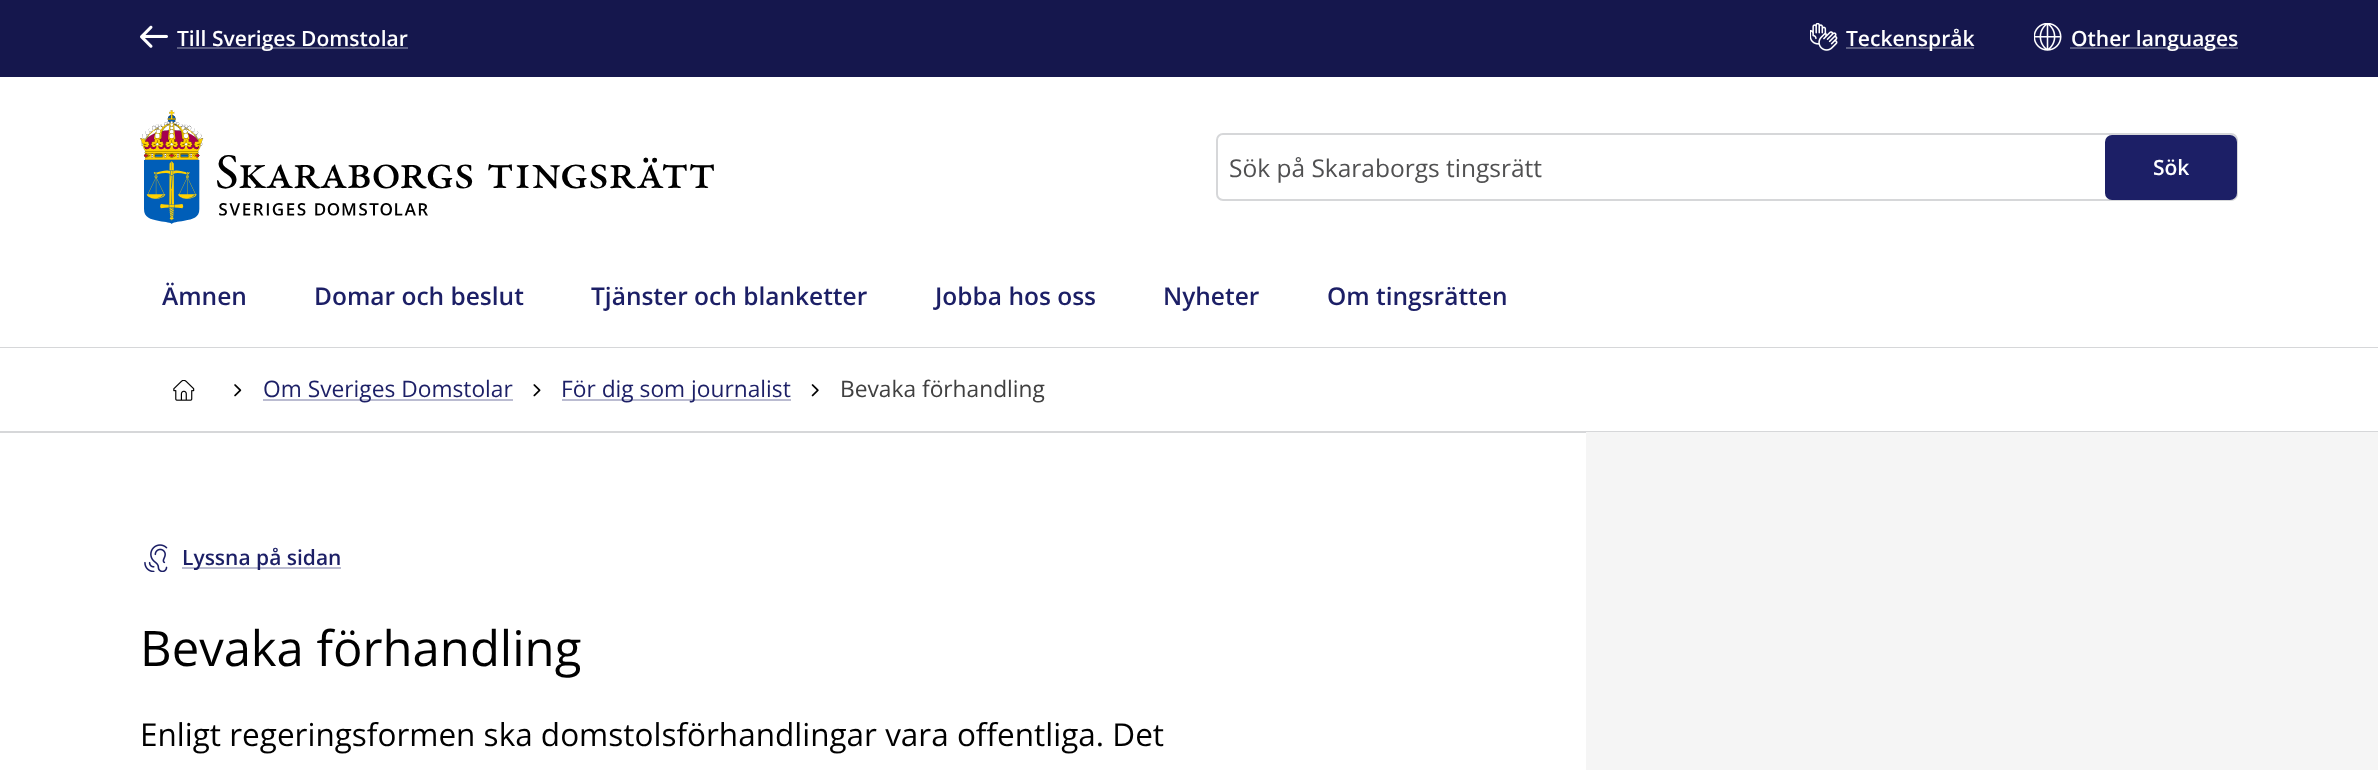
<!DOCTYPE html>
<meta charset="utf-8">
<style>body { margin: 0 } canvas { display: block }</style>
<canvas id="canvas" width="2378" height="770"></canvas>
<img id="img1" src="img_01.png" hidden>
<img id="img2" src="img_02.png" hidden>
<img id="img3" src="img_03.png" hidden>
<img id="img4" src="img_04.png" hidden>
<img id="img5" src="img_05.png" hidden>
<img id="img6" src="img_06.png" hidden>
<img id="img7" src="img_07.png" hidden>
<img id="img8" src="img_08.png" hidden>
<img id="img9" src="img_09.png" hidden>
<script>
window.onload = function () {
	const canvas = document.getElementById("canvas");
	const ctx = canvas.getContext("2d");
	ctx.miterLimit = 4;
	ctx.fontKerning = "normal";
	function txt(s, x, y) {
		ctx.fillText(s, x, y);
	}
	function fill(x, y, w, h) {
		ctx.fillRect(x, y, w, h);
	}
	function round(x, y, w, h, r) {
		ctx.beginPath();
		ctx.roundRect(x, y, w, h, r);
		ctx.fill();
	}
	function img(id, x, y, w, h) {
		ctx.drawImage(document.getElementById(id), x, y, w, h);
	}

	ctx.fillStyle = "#FFFFFF";
	fill(0, 0, 2378, 770);
	ctx.fillStyle = "#D6D7D9";
	fill(0, 347, 2378, 1);
	ctx.fillStyle = "#15174D";
	fill(0, 0, 2378, 77);
	img("img1", 140, 25, 28, 23);
	ctx.fillStyle = "#5B5D82";
	fill(177, 47, 231, 2);
	img("img2", 1810, 23, 28, 28);
	fill(1846, 47, 128, 2);
	img("img3", 2034, 23, 28, 28);
	fill(2070, 47, 168, 2);
	img("img4", 140, 110, 574, 114);
	ctx.beginPath();
	ctx.roundRect(1217, 134, 1020, 66, 6);
	ctx.strokeStyle = "#D6D7D9";
	ctx.lineWidth = 2;
	ctx.stroke();
	ctx.fillStyle = "#1C1F66";
	round(2105, 135, 132, 65, 7);
	ctx.fillStyle = "#D6D7D9";
	fill(0, 431, 2378, 2);
	img("img5", 173, 380, 22, 21);
	img("img6", 234, 384, 8, 13);
	ctx.fillStyle = "#BBBCD1";
	fill(263, 399, 250, 2);
	img("img7", 533, 384, 8, 13);
	fill(562, 399, 229, 2);
	img("img8", 811, 384, 8, 13);
	img("img9", 144, 544, 24, 28);
	fill(182, 567, 159, 2);
	ctx.fillStyle = "#F5F5F5";
	fill(1586, 432, 792, 338);
	ctx.font = "600 21px Open Sans";
	ctx.fillStyle = "#FFFFFF";
	txt("Till Sveriges Domstolar", 177, 46);
	txt("Teckenspråk", 1846, 46);
	txt("Other languages", 2071, 46);
	ctx.font = "24.5px Open Sans";
	ctx.fillStyle = "#505051";
	txt("Sök på Skaraborgs tingsrätt", 1229, 177);
	ctx.font = "600 21px Open Sans";
	ctx.fillStyle = "#FFFFFF";
	txt("Sök", 2153, 175);
	ctx.font = "600 24.5px Open Sans";
	ctx.fillStyle = "#1C1F66";
	txt("Ämnen", 162, 305);
	txt("Domar och beslut", 314, 305);
	txt("Tjänster och blanketter", 591, 305);
	txt("Jobba hos oss", 935, 305);
	txt("Nyheter", 1163, 305);
	txt("Om tingsrätten", 1327, 305);
	ctx.font = "22.75px Open Sans";
	txt("Om Sveriges Domstolar", 263, 397);
	txt("För dig som journalist", 561, 397);
	ctx.fillStyle = "#404040";
	txt("Bevaka förhandling", 840, 397);
	ctx.font = "600 21px Open Sans";
	ctx.fillStyle = "#1C1F66";
	txt("Lyssna på sidan", 182, 565);
	ctx.font = "49px Open Sans";
	ctx.fillStyle = "#000000";
	txt("Bevaka förhandling", 140, 666);
	ctx.font = "31.5px Open Sans";
	txt("Enligt regeringsformen ska domstolsförhandlingar vara offentliga. Det", 140, 746);
};
</script>
